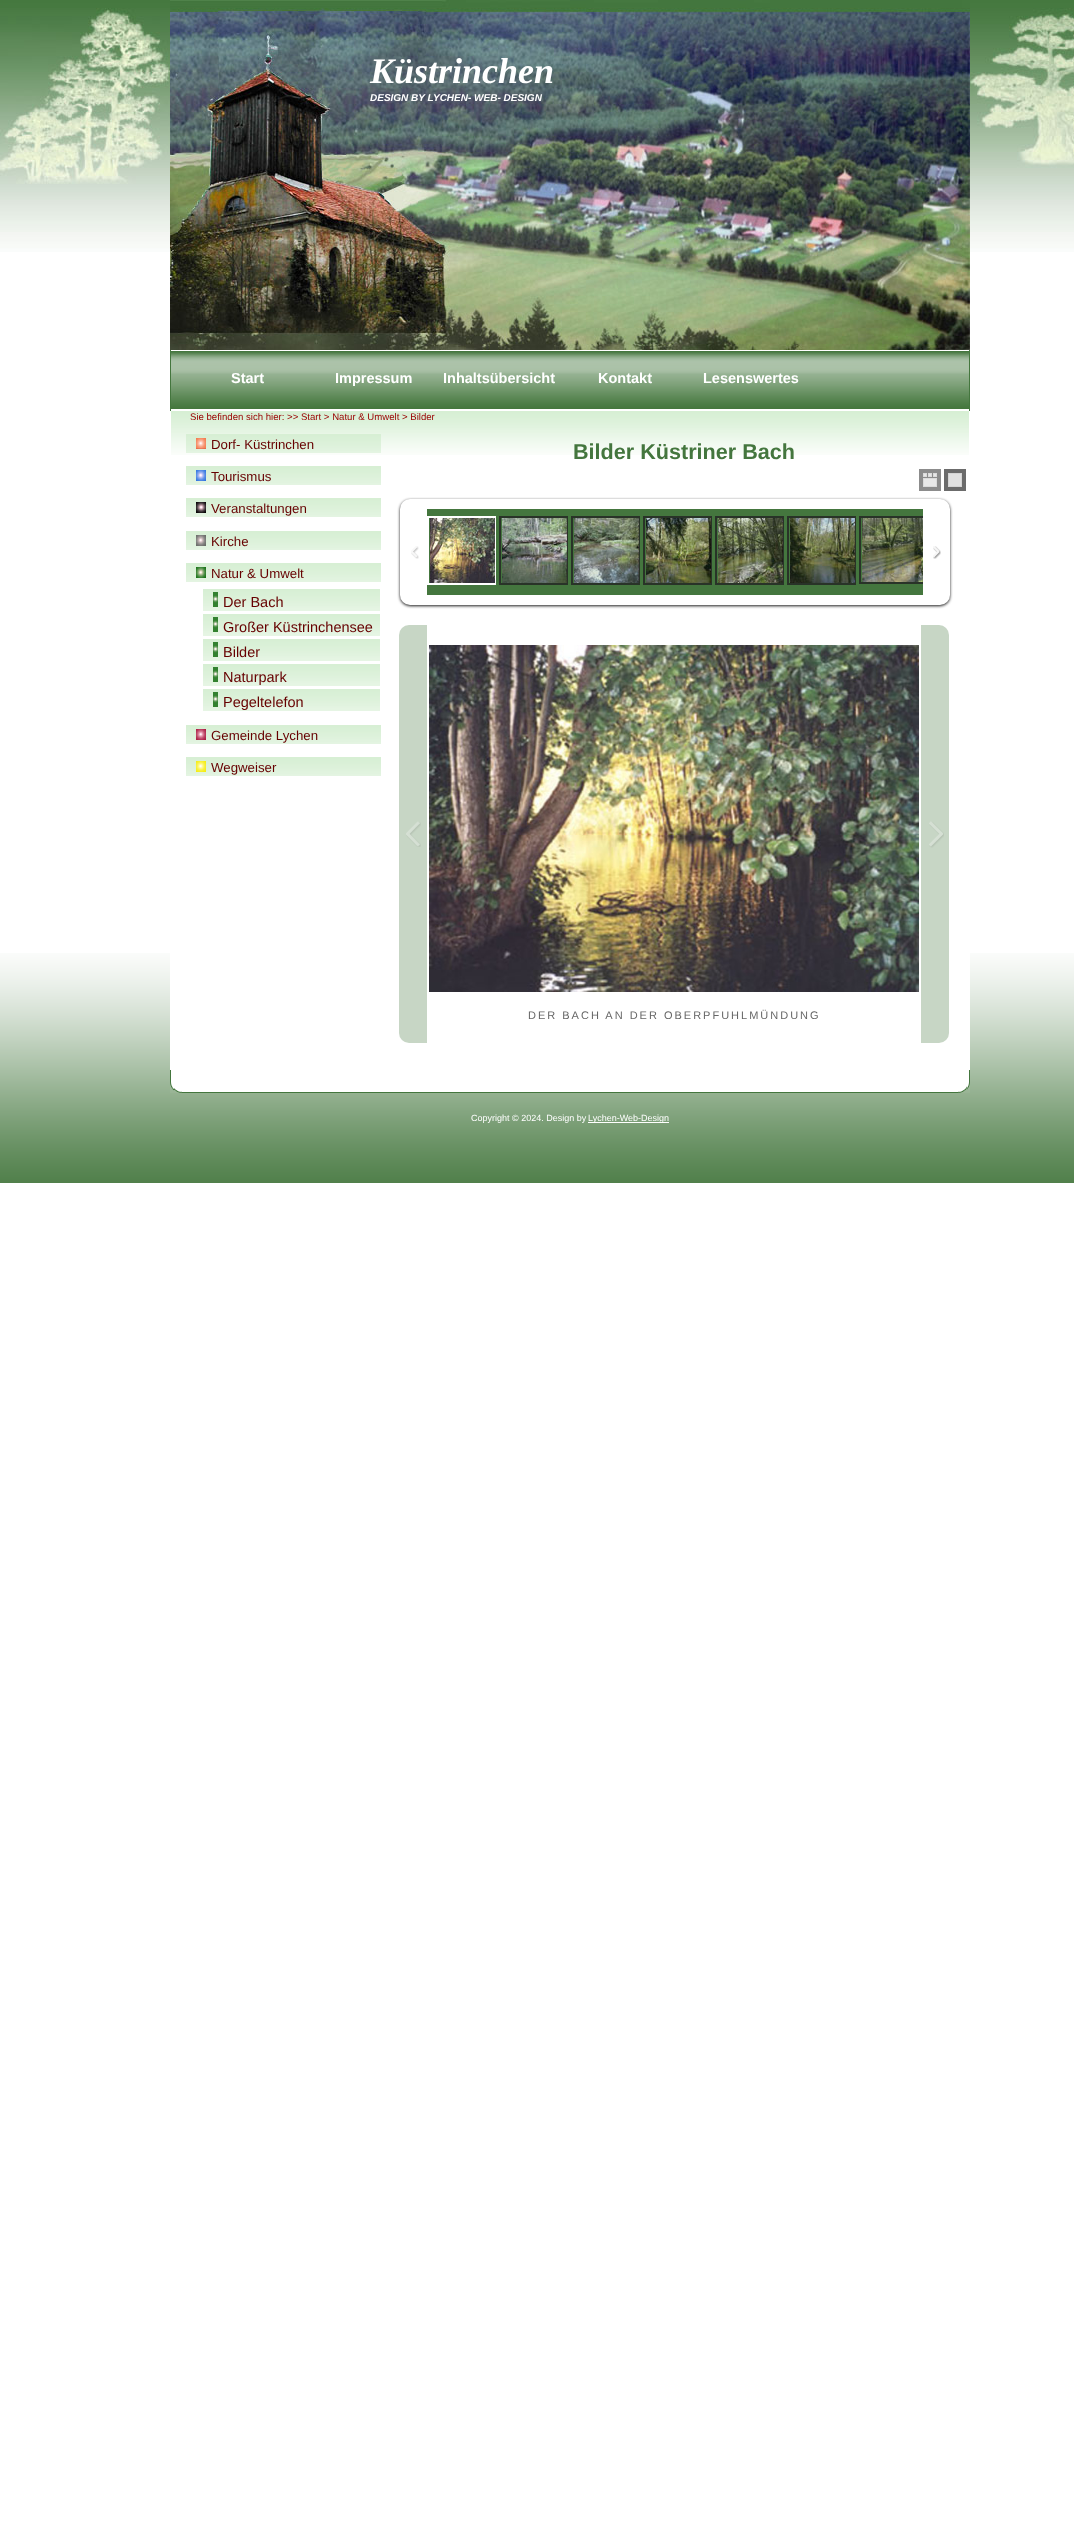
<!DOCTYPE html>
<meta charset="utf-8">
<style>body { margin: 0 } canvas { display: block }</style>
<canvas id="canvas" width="1074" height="2522"></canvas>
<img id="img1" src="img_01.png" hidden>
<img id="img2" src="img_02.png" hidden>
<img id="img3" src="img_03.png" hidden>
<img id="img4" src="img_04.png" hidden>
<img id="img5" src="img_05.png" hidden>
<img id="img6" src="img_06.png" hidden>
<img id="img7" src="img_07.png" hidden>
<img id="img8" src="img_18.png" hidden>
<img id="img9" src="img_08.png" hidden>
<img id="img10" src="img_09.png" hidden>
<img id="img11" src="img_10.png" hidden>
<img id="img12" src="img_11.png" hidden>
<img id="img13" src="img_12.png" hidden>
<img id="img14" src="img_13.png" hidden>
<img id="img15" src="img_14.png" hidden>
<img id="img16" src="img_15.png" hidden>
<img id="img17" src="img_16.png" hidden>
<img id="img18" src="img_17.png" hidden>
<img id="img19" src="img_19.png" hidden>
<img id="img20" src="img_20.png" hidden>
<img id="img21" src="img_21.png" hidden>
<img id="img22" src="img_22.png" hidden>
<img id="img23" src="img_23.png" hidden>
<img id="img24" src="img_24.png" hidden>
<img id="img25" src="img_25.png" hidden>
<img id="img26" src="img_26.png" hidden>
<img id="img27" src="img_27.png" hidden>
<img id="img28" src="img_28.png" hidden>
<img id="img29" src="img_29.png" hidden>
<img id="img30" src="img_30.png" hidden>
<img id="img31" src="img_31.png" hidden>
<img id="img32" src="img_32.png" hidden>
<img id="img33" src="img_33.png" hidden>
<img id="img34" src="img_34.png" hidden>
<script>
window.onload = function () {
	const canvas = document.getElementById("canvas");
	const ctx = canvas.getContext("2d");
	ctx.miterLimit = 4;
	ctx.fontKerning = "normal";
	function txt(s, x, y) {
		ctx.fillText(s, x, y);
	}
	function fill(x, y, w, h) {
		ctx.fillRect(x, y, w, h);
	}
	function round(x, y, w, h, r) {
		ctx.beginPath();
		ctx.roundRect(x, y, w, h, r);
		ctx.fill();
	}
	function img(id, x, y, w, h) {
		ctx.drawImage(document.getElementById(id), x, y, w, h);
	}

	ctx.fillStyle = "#FFFFFF";
	fill(0, 0, 1074, 2522);
	img("img1", 0, 0, 1074, 252);
	img("img2", 0, 953, 1074, 230);
	img("img3", 0, 8, 170, 176);
	img("img4", 970, 8, 104, 160);
	img("img5", 170, 0, 800, 350);
	img("img6", 171, 351, 798, 58);
	ctx.fillStyle = "#44763E";
	fill(969, 350, 1, 61);
	fill(170, 350, 1, 61);
	ctx.fillStyle = "#FFFFFF";
	fill(170, 953, 800, 117);
	img("img7", 171, 411, 200, 44);
	img("img8", 371, 411, 598, 44);
	img("img9", 186, 434, 195, 19);
	img("img10", 196, 438, 10, 11);
	img("img9", 186, 466, 195, 19);
	img("img11", 196, 470, 10, 11);
	img("img9", 186, 498, 195, 19);
	img("img12", 196, 502, 10, 11);
	img("img9", 186, 531, 195, 19);
	img("img13", 196, 535, 10, 11);
	img("img9", 186, 563, 195, 19);
	img("img14", 196, 567, 10, 11);
	img("img15", 203, 589, 177, 22);
	img("img16", 213, 592, 5, 15);
	img("img15", 203, 614, 177, 22);
	img("img16", 213, 617, 5, 15);
	img("img15", 203, 639, 177, 22);
	img("img16", 213, 642, 5, 15);
	img("img15", 203, 664, 177, 22);
	img("img16", 213, 667, 5, 15);
	img("img15", 203, 689, 177, 22);
	img("img16", 213, 692, 5, 15);
	img("img9", 186, 725, 195, 19);
	img("img17", 196, 729, 10, 11);
	img("img9", 186, 757, 195, 19);
	img("img18", 196, 761, 10, 11);
	ctx.fillStyle = "#8C8C8C";
	fill(922, 472, 16, 16);
	img("img19", 923, 473, 14, 14);
	ctx.strokeStyle = "#8C8C8C";
	ctx.lineWidth = 3;
	ctx.strokeRect(920.5, 470.5, 19, 19);
	ctx.fillStyle = "#6B6B6B";
	fill(947, 472, 16, 16);
	img("img20", 948, 473, 14, 14);
	ctx.strokeStyle = "#6B6B6B";
	ctx.strokeRect(945.5, 470.5, 19, 19);
	ctx.fillStyle = "rgba(0, 0, 0, 0.9)";
	ctx.filter = "blur(1.5px)";
	ctx.beginPath();
	ctx.roundRect(400, 500, 550, 106, 10);
	ctx.fill();
	ctx.filter = "none";
	ctx.fillStyle = "#FFFFFF";
	round(400, 499, 550, 106, 10);
	ctx.fillStyle = "#44763E";
	fill(427, 509, 496, 86);
	ctx.strokeStyle = "#FFFFFF";
	ctx.lineWidth = 2;
	ctx.strokeRect(428, 517, 67, 67);
	img("img21", 430, 518, 65, 65);
	ctx.strokeStyle = "#293328";
	ctx.strokeRect(500, 517, 67, 67);
	img("img22", 502, 518, 65, 65);
	ctx.strokeRect(572, 517, 67, 67);
	img("img23", 574, 518, 65, 65);
	ctx.strokeRect(644, 517, 67, 67);
	img("img24", 646, 518, 65, 65);
	ctx.strokeRect(716, 517, 67, 67);
	img("img25", 718, 518, 65, 65);
	ctx.strokeRect(788, 517, 67, 67);
	img("img26", 790, 518, 65, 65);
	ctx.save();
	ctx.beginPath();
	ctx.rect(427, 509, 496, 86);
	ctx.clip();
	ctx.strokeRect(860, 517, 67, 66);
	ctx.restore();
	img("img27", 862, 518, 61, 64);
	img("img28", 411, 546, 8, 13);
	img("img29", 933, 546, 8, 13);
	img("img30", 933, 546, 8, 13);
	ctx.fillStyle = "#C7D6C5";
	ctx.beginPath();
	ctx.roundRect(399, 625, 28, 418, [10, 0, 0, 10]);
	ctx.fill();
	img("img31", 406, 821, 15, 26);
	ctx.beginPath();
	ctx.roundRect(921, 625, 28, 418, [0, 10, 10, 0]);
	ctx.fill();
	img("img32", 929, 821, 15, 27);
	img("img33", 429, 645, 490, 347);
	img("img34", 170, 1070, 800, 23);
	ctx.fillStyle = "#FFFFFF";
	fill(588, 1122, 81, 1);
	ctx.font = "italic bold 36px Liberation Serif";
	txt("Küstrinchen", 370, 83);
	ctx.font = "italic bold 10px Liberation Sans";
	txt("DESIGN BY LYCHEN- WEB- DESIGN", 370, 101);
	ctx.font = "bold 14.5px Liberation Sans";
	txt("Start", 231, 383);
	txt("Impressum", 335, 383);
	txt("Inhaltsübersicht", 443, 383);
	txt("Kontakt", 598, 383);
	txt("Lesenswertes", 703, 383);
	ctx.font = "9.6px Liberation Sans";
	ctx.fillStyle = "#990000";
	txt("Sie befinden sich hier: >> Start > Natur & Umwelt > Bilder", 190, 420);
	ctx.font = "13.25px Liberation Sans";
	ctx.fillStyle = "#660000";
	txt("Dorf- Küstrinchen", 211, 449);
	txt("Tourismus", 211, 481);
	txt("Veranstaltungen", 211, 513);
	txt("Kirche", 211, 546);
	txt("Natur & Umwelt", 211, 578);
	ctx.font = "14.5px Liberation Sans";
	txt("Der Bach", 223, 607);
	txt("Großer Küstrinchensee", 223, 632);
	txt("Bilder", 223, 657);
	txt("Naturpark", 223, 682);
	txt("Pegeltelefon", 223, 707);
	ctx.font = "13.25px Liberation Sans";
	txt("Gemeinde Lychen", 211, 740);
	txt("Wegweiser", 211, 772);
	ctx.font = "bold 21.6px Liberation Sans";
	ctx.fillStyle = "#44763E";
	txt("Bilder Küstriner Bach", 573, 459);
	ctx.letterSpacing = "2px";
	ctx.font = "11px Liberation Sans";
	ctx.fillStyle = "#666666";
	txt("DER BACH AN DER OBERPFUHLMÜNDUNG", 528, 1019);
	ctx.letterSpacing = "0px";
	ctx.font = "9px Liberation Sans";
	ctx.fillStyle = "#FFFFFF";
	txt("Copyright © 2024. Design by", 471, 1121);
	txt("Lychen-Web-Design", 588, 1121);
};
</script>
